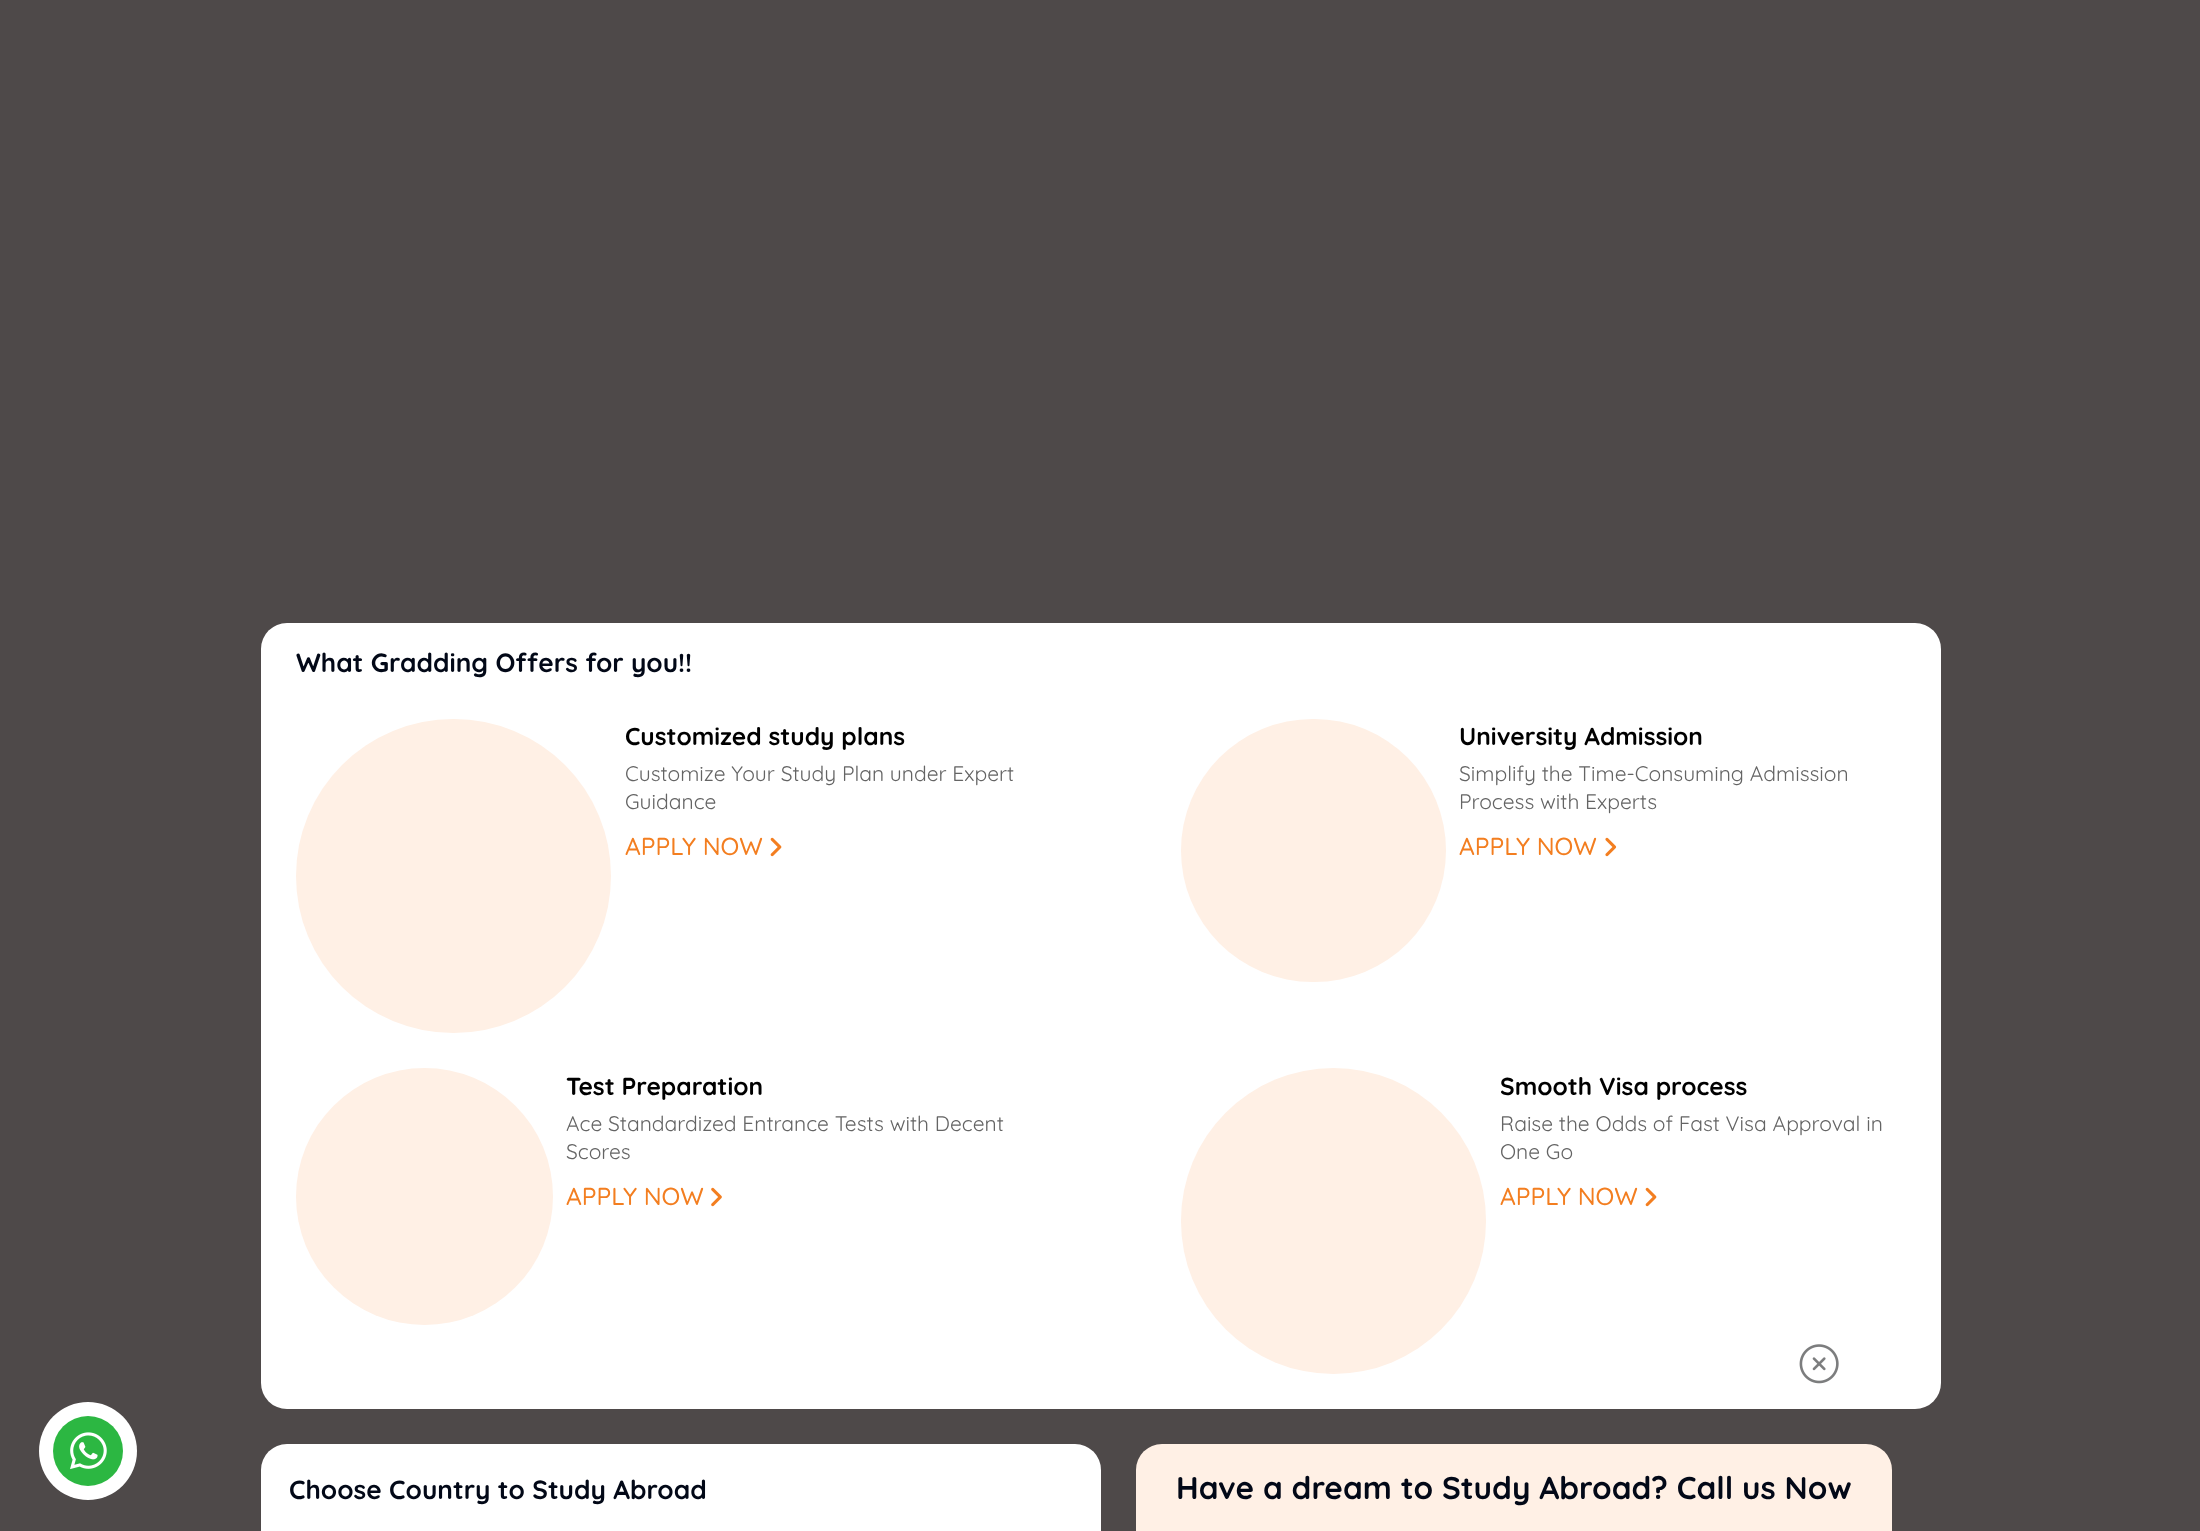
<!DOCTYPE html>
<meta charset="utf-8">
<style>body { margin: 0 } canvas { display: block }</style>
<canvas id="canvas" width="2200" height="1531"></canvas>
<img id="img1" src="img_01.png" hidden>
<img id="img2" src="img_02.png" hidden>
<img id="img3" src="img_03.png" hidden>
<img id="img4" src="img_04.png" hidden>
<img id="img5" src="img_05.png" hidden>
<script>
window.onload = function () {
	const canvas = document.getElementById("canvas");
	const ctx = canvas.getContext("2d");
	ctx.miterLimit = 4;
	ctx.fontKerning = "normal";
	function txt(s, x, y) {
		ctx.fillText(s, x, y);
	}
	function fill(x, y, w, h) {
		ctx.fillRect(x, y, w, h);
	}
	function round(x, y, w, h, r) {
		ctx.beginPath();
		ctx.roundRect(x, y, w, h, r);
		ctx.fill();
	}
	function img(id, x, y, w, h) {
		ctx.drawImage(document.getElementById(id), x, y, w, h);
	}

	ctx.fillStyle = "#4E4949";
	fill(0, 0, 2200, 1531);
	ctx.fillStyle = "#FFFFFF";
	round(261, 623, 1680, 786, 26);
	ctx.fillStyle = "#FFF0E5";
	round(296, 719, 315, 314, 157);
	img("img1", 770, 837, 12, 20);
	round(1181, 719, 265, 263, 131.5);
	img("img2", 1605, 837, 12, 20);
	ctx.beginPath();
	ctx.arc(424.5, 1196.5, 128.5, 0, Math.PI * 2);
	ctx.fill();
	img("img3", 711, 1187, 11, 20);
	round(1181, 1068, 305, 306, 152.5);
	img("img1", 1645, 1187, 12, 20);
	ctx.fillStyle = "#FFFFFF";
	round(261, 1444, 840, 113, 26);
	ctx.fillStyle = "#FFF0E5";
	round(1136, 1444, 756, 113, 26);
	img("img4", 1799, 1344, 40, 40);
	ctx.fillStyle = "#FFFFFF";
	ctx.beginPath();
	ctx.arc(88, 1451, 49, 0, Math.PI * 2);
	ctx.fill();
	ctx.fillStyle = "#2CB742";
	ctx.beginPath();
	ctx.arc(88, 1451, 35, 0, Math.PI * 2);
	ctx.fill();
	img("img5", 70, 1432, 37, 38);
	ctx.font = "bold 26.25px Quicksand";
	ctx.fillStyle = "#020817";
	txt("What Gradding Offers for you!!", 296, 672);
	ctx.font = "bold 24.5px Quicksand";
	ctx.fillStyle = "#000000";
	txt("Customized study plans", 625, 745);
	ctx.font = "21px Quicksand";
	ctx.fillStyle = "#646464";
	txt("Customize Your Study Plan under Expert", 625, 781);
	txt("Guidance", 625, 809);
	ctx.font = "500 24.5px Quicksand";
	ctx.fillStyle = "#F37E20";
	txt("APPLY NOW", 625, 855);
	ctx.font = "bold 24.5px Quicksand";
	ctx.fillStyle = "#000000";
	txt("University Admission", 1459, 745);
	ctx.font = "21px Quicksand";
	ctx.fillStyle = "#646464";
	txt("Simplify the Time-Consuming Admission", 1459, 781);
	txt("Process with Experts", 1459, 809);
	ctx.font = "500 24.5px Quicksand";
	ctx.fillStyle = "#F37E20";
	txt("APPLY NOW", 1459, 855);
	ctx.font = "bold 24.5px Quicksand";
	ctx.fillStyle = "#000000";
	txt("Test Preparation", 566, 1095);
	ctx.font = "21px Quicksand";
	ctx.fillStyle = "#646464";
	txt("Ace Standardized Entrance Tests with Decent", 566, 1131);
	txt("Scores", 566, 1159);
	ctx.font = "500 24.5px Quicksand";
	ctx.fillStyle = "#F37E20";
	txt("APPLY NOW", 566, 1205);
	ctx.font = "bold 24.5px Quicksand";
	ctx.fillStyle = "#000000";
	txt("Smooth Visa process", 1500, 1095);
	ctx.font = "21px Quicksand";
	ctx.fillStyle = "#646464";
	txt("Raise the Odds of Fast Visa Approval in", 1500, 1131);
	txt("One Go", 1500, 1159);
	ctx.font = "500 24.5px Quicksand";
	ctx.fillStyle = "#F37E20";
	txt("APPLY NOW", 1500, 1205);
	ctx.font = "bold 26.25px Quicksand";
	ctx.fillStyle = "#020817";
	txt("Choose Country to Study Abroad", 289, 1499);
	ctx.font = "bold 31.5px Quicksand";
	txt("Have a dream to Study Abroad? Call us Now", 1176, 1499);
};
</script>
